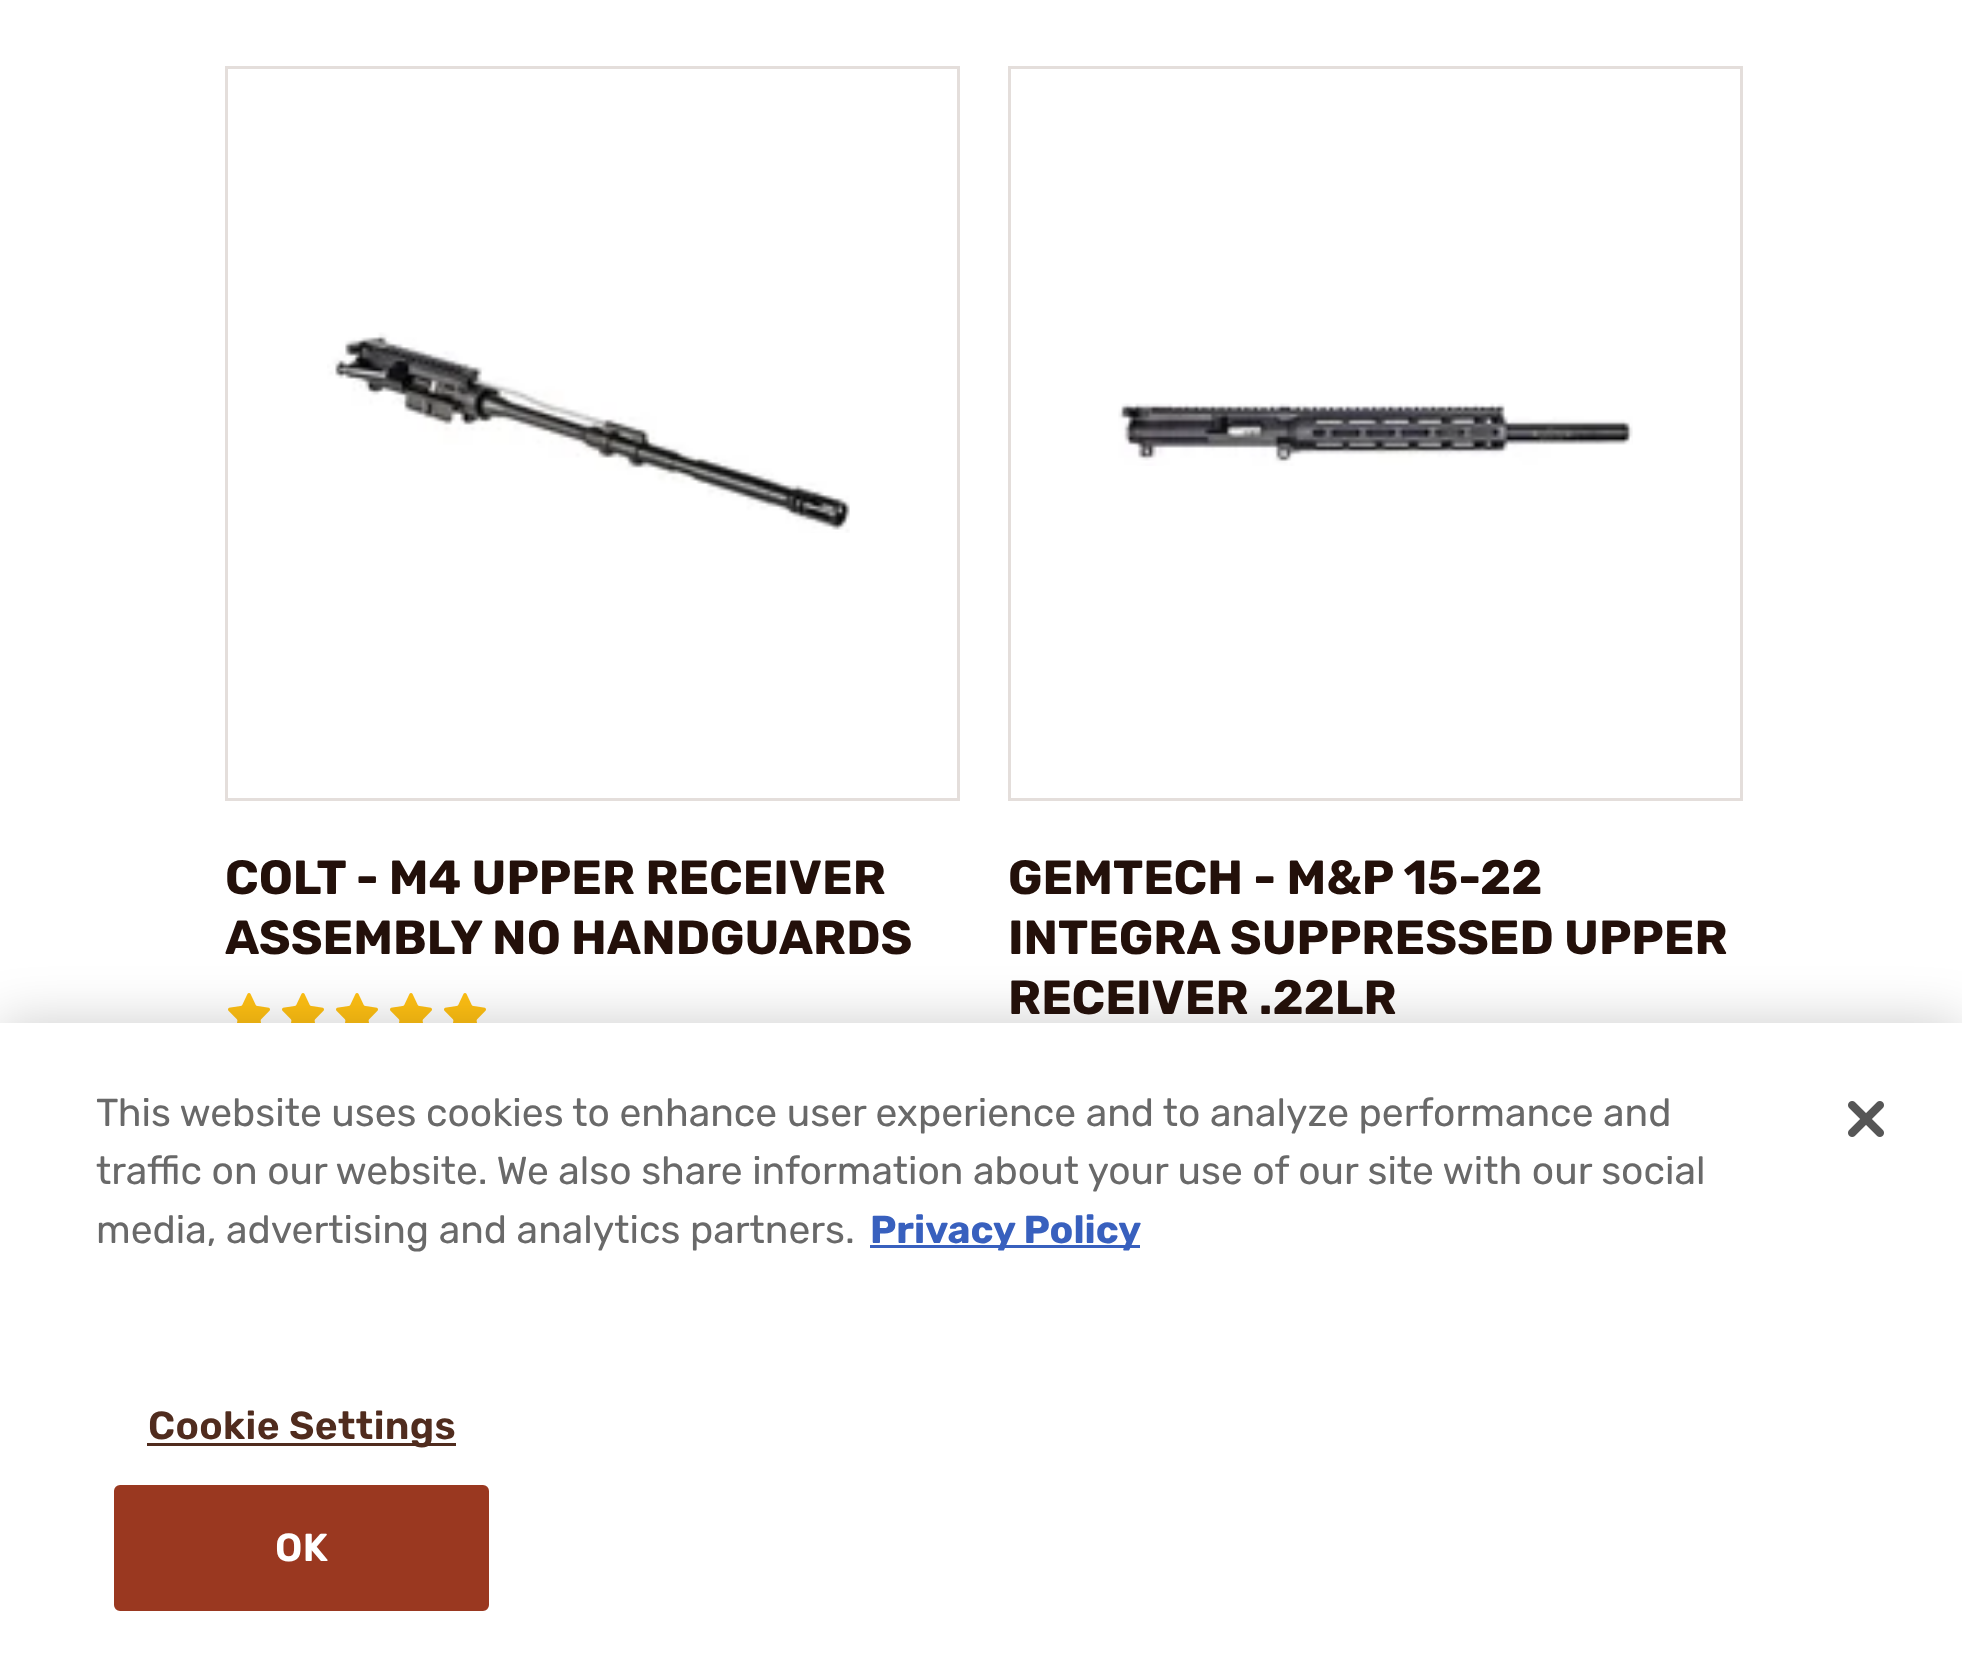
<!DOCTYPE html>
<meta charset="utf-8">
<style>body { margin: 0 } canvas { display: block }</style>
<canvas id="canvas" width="1962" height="1659"></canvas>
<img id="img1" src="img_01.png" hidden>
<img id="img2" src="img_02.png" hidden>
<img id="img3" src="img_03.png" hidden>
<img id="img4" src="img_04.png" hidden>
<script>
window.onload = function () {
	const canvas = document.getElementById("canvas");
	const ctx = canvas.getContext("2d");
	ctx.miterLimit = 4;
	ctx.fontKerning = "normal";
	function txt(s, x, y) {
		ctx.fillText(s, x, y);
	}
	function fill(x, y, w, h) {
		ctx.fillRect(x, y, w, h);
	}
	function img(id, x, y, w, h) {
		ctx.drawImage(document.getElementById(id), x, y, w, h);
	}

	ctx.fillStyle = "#FFFFFF";
	fill(0, 0, 1962, 1659);
	ctx.strokeStyle = "#E4DEDB";
	ctx.lineWidth = 3;
	ctx.strokeRect(226.5, 67.5, 732, 732);
	img("img1", 327, 332, 523, 201);
	img("img2", 228, 993, 258, 30);
	ctx.strokeRect(1009.5, 67.5, 732, 732);
	img("img3", 1118, 403, 515, 63);
	ctx.fillStyle = "rgba(0, 0, 0, 0.2)";
	ctx.filter = "blur(27px)";
	ctx.beginPath();
	ctx.rect(0, 1023, 1962, 636);
	ctx.fill();
	ctx.filter = "none";
	ctx.fillStyle = "#FFFFFF";
	fill(0, 1023, 1962, 636);
	ctx.fillStyle = "#3860BE";
	fill(870, 1245, 270, 3);
	ctx.fillStyle = "#502C1E";
	fill(147, 1443, 309, 3);
	ctx.fillStyle = "#9A3820";
	ctx.beginPath();
	ctx.roundRect(115.5, 1486.5, 372, 123, 4.5);
	ctx.fill();
	ctx.strokeStyle = "#9A3820";
	ctx.stroke();
	img("img4", 1848, 1101, 36, 36);
	ctx.font = "bold 48px Rubik";
	ctx.fillStyle = "#23100A";
	txt("COLT - M4 UPPER RECEIVER", 225, 894);
	txt("ASSEMBLY NO HANDGUARDS", 225, 954);
	txt("GEMTECH - M&P 15-22", 1008, 894);
	txt("INTEGRA SUPPRESSED UPPER", 1008, 954);
	txt("RECEIVER .22LR", 1008, 1014);
	ctx.font = "39px Rubik";
	ctx.fillStyle = "#696969";
	txt("This website uses cookies to enhance user experience and to analyze performance and", 96, 1126);
	txt("traffic on our website. We also share information about your use of our site with our social", 96, 1184);
	txt("media, advertising and analytics partners.", 96, 1243);
	ctx.font = "bold 39px Rubik";
	ctx.fillStyle = "#3860BE";
	txt("Privacy Policy", 870, 1243);
	ctx.letterSpacing = "0.4px";
	ctx.font = "600 39px Rubik";
	ctx.fillStyle = "#502C1E";
	txt("Cookie Settings", 148, 1439);
	ctx.fillStyle = "#FFFFFF";
	txt("OK", 275, 1561);
};
</script>
